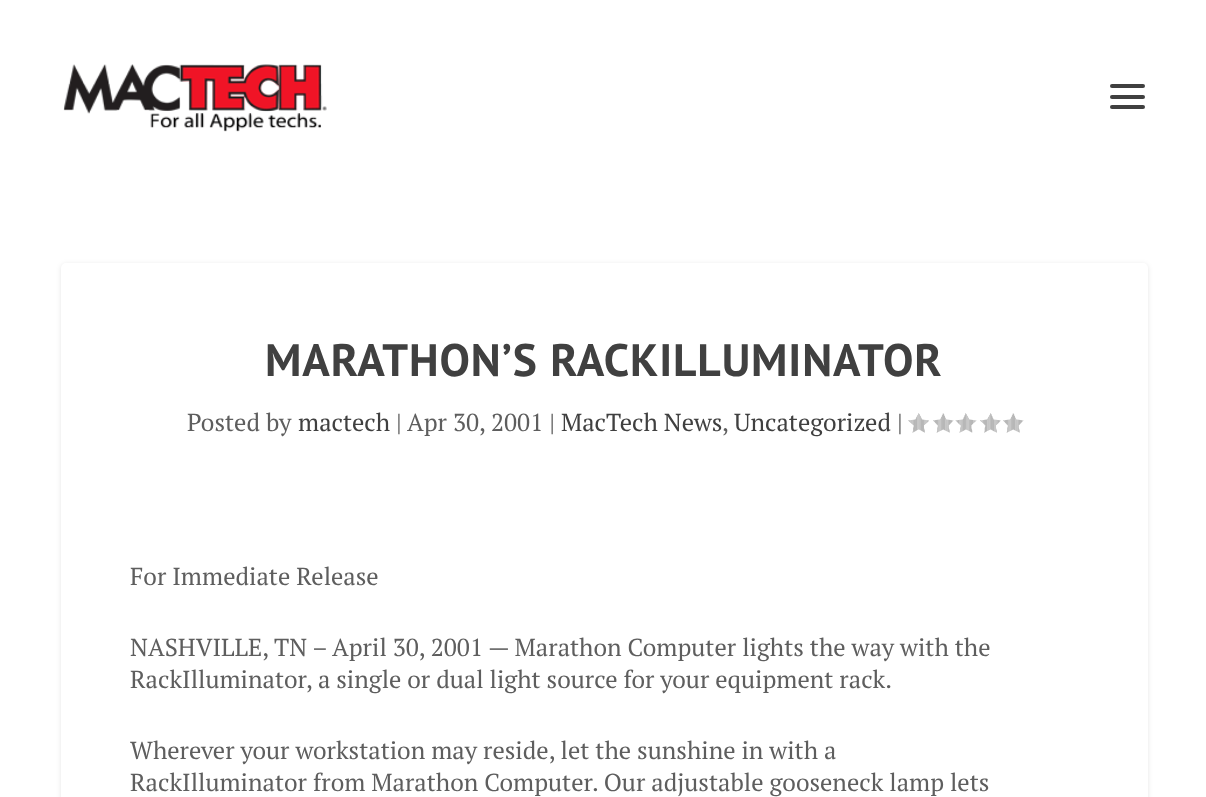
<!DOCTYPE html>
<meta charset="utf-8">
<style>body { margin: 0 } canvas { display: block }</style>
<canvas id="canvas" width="1206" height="797"></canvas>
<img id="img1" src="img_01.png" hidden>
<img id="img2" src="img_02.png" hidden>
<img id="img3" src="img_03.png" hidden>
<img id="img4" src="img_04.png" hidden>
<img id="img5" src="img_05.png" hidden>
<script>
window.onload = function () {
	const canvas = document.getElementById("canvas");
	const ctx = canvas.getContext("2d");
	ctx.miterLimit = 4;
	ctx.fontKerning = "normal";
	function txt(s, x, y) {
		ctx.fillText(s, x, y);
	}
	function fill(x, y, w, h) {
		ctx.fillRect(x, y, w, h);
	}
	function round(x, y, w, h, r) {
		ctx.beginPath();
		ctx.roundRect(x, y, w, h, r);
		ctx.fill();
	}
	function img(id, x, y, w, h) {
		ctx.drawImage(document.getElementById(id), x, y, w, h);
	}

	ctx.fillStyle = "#FFFFFF";
	fill(0, 0, 1206, 797);
	img("img1", 63, 64, 264, 68);
	ctx.fillStyle = "#404040";
	round(1110, 84, 35, 4, 2);
	round(1110, 95, 35, 4, 2);
	round(1110, 105, 35, 4, 2);
	ctx.fillStyle = "rgba(0, 0, 0, 0.1)";
	ctx.filter = "blur(2.5px)";
	ctx.beginPath();
	ctx.roundRect(61, 264, 1087, 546, 5);
	ctx.fill();
	ctx.filter = "none";
	ctx.fillStyle = "#FFFFFF";
	round(61, 263, 1087, 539, 5);
	img("img2", 908, 413, 21, 20);
	img("img3", 933, 413, 21, 20);
	img("img4", 955, 413, 22, 20);
	img("img5", 980, 413, 21, 20);
	img("img3", 1003, 413, 21, 20);
	ctx.letterSpacing = "0.9px";
	ctx.font = "bold 45.5px PT Sans";
	ctx.fillStyle = "#404040";
	txt("MARATHON’S RACKILLUMINATOR", 265, 376);
	ctx.letterSpacing = "0px";
	ctx.font = "24.5px PT Serif";
	ctx.fillStyle = "#5E5E5E";
	txt("Posted by", 187, 431);
	ctx.fillStyle = "#404040";
	txt("mactech", 298, 431);
	ctx.fillStyle = "#5E5E5E";
	txt("|", 396, 431);
	txt("Apr 30, 2001 |", 407, 431);
	ctx.fillStyle = "#404040";
	txt("MacTech News", 561, 431);
	ctx.fillStyle = "#5E5E5E";
	txt(",", 722, 431);
	ctx.fillStyle = "#404040";
	txt("Uncategorized", 734, 431);
	ctx.fillStyle = "#5E5E5E";
	txt("|", 897, 431);
	txt("For Immediate Release", 130, 585);
	txt("NASHVILLE, TN – April 30, 2001 — Marathon Computer lights the way with the", 130, 656);
	txt("RackIlluminator, a single or dual light source for your equipment rack.", 130, 688);
	txt("Wherever your workstation may reside, let the sunshine in with a", 130, 759);
	txt("RackIlluminator from Marathon Computer. Our adjustable gooseneck lamp lets", 130, 791);
};
</script>
